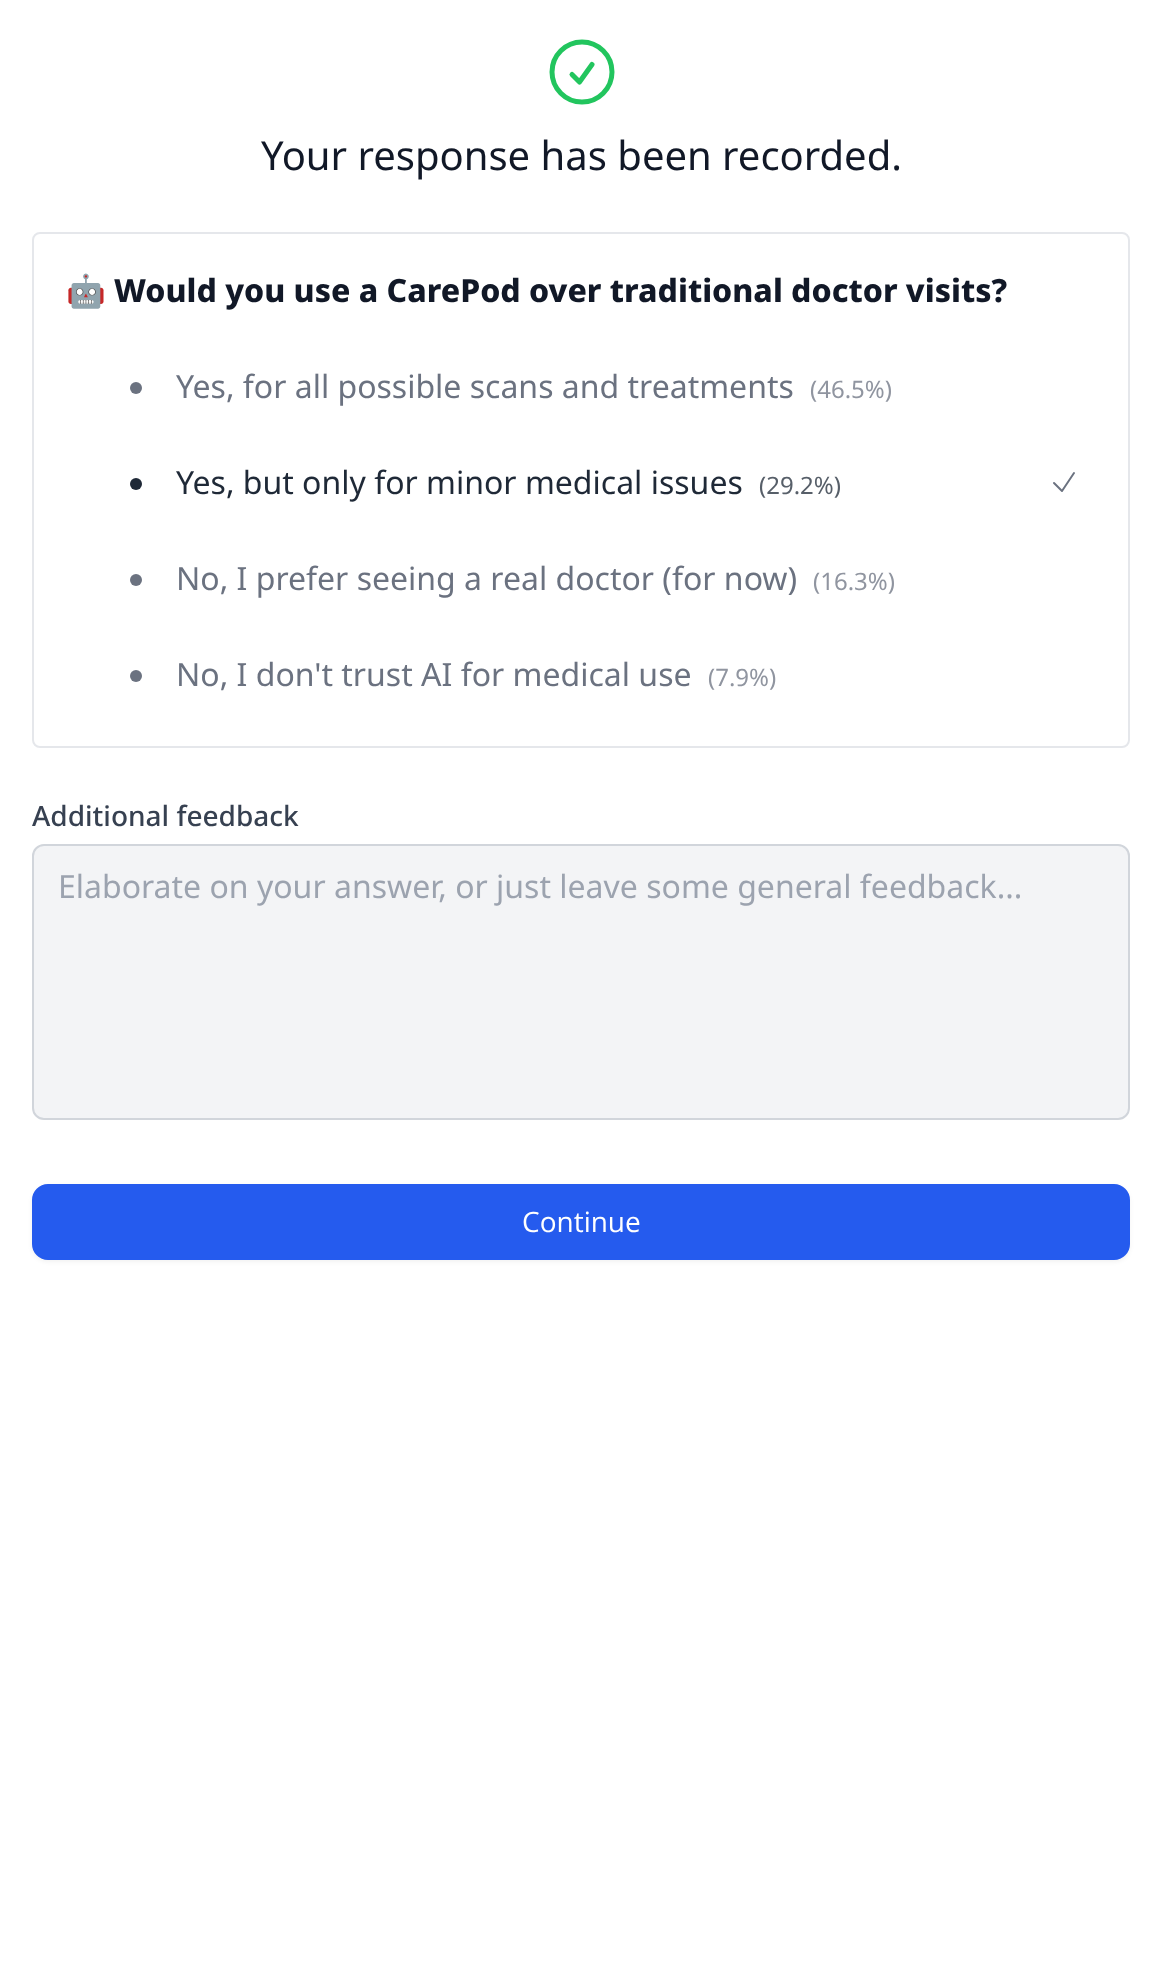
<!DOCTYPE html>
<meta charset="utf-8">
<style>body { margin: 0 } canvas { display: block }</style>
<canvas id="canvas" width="1162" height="1971"></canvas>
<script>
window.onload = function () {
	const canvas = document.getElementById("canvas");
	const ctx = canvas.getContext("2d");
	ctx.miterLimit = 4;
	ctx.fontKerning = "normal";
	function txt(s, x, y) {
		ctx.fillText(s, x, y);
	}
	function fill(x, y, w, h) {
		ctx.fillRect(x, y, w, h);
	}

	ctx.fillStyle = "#FFFFFF";
	fill(0, 0, 1162, 1971);
	ctx.beginPath();
	ctx.moveTo(572, 74.5);
	ctx.lineTo(579.5, 82);
	ctx.lineTo(592, 64.5);
	ctx.moveTo(612, 72);
	ctx.bezierCurveTo(612, 88.5, 598.5, 102, 582, 102);
	ctx.bezierCurveTo(565.5, 102, 552, 88.5, 552, 72);
	ctx.bezierCurveTo(552, 55.5, 565.5, 42, 582, 42);
	ctx.bezierCurveTo(598.5, 42, 612, 55.5, 612, 72);
	ctx.closePath();
	ctx.strokeStyle = "#22C55E";
	ctx.lineWidth = 5;
	ctx.lineCap = "round";
	ctx.lineJoin = "round";
	ctx.stroke();
	ctx.beginPath();
	ctx.roundRect(33, 233, 1096, 514, 7);
	ctx.strokeStyle = "#E5E7EB";
	ctx.lineWidth = 2;
	ctx.lineJoin = "miter";
	ctx.stroke();
	ctx.fillStyle = "#6B7280";
	ctx.beginPath();
	ctx.arc(136, 388, 6, 0, Math.PI * 2);
	ctx.fill();
	ctx.fillStyle = "#1F2937";
	ctx.beginPath();
	ctx.arc(136, 484, 6, 0, Math.PI * 2);
	ctx.fill();
	ctx.beginPath();
	ctx.moveTo(1054, 483);
	ctx.lineTo(1062, 491);
	ctx.lineTo(1074, 473);
	ctx.strokeStyle = "#6B7280";
	ctx.lineJoin = "round";
	ctx.stroke();
	ctx.fillStyle = "#6B7280";
	ctx.beginPath();
	ctx.arc(136, 580, 6, 0, Math.PI * 2);
	ctx.fill();
	ctx.beginPath();
	ctx.arc(136, 676, 6, 0, Math.PI * 2);
	ctx.fill();
	ctx.fillStyle = "#F3F4F6";
	ctx.beginPath();
	ctx.roundRect(33, 845, 1096, 274, 11);
	ctx.fill();
	ctx.strokeStyle = "#D1D5DB";
	ctx.lineJoin = "miter";
	ctx.stroke();
	ctx.fillStyle = "rgba(0, 0, 0, 0.05)";
	ctx.filter = "blur(2px)";
	ctx.beginPath();
	ctx.roundRect(32, 1186, 1098, 76, 16);
	ctx.fill();
	ctx.filter = "none";
	ctx.fillStyle = "#255BEE";
	ctx.beginPath();
	ctx.roundRect(33, 1185, 1096, 74, 15);
	ctx.fill();
	ctx.strokeStyle = "#255BEE";
	ctx.stroke();
	ctx.font = "40px Noto Sans";
	ctx.fillStyle = "#111827";
	txt("Your response has been recorded.", 261, 170);
	ctx.font = "bold 32px Noto Color Emoji";
	txt("🤖", 66, 302);
	ctx.font = "800 32px Noto Sans";
	txt("Would you use a CarePod over traditional doctor visits?", 114, 302);
	ctx.font = "32px Noto Sans";
	ctx.fillStyle = "#6B7280";
	txt("Yes, for all possible scans and treatments", 176, 398);
	ctx.font = "24px Noto Sans";
	ctx.fillStyle = "#9095A0";
	txt("(46.5%)", 810, 398);
	ctx.font = "32px Noto Sans";
	ctx.fillStyle = "#1F2937";
	txt("Yes, but only for minor medical issues", 176, 494);
	ctx.font = "24px Noto Sans";
	ctx.fillStyle = "#575F69";
	txt("(29.2%)", 759, 494);
	ctx.font = "32px Noto Sans";
	ctx.fillStyle = "#6B7280";
	txt("No, I prefer seeing a real doctor (for now)", 176, 590);
	ctx.font = "24px Noto Sans";
	ctx.fillStyle = "#9095A0";
	txt("(16.3%)", 813, 590);
	ctx.font = "32px Noto Sans";
	ctx.fillStyle = "#6B7280";
	txt("No, I don't trust AI for medical use", 176, 686);
	ctx.font = "24px Noto Sans";
	ctx.fillStyle = "#9095A0";
	txt("(7.9%)", 708, 686);
	ctx.font = "500 28px Noto Sans";
	ctx.fillStyle = "#374151";
	txt("Additional feedback", 32, 826);
	ctx.font = "32px Noto Sans";
	ctx.fillStyle = "#9CA3AF";
	txt("Elaborate on your answer, or just leave some general feedback...", 58, 898);
	ctx.font = "28px Open Sans";
	ctx.fillStyle = "#FFFFFF";
	txt("Continue", 522, 1232);
};
</script>
